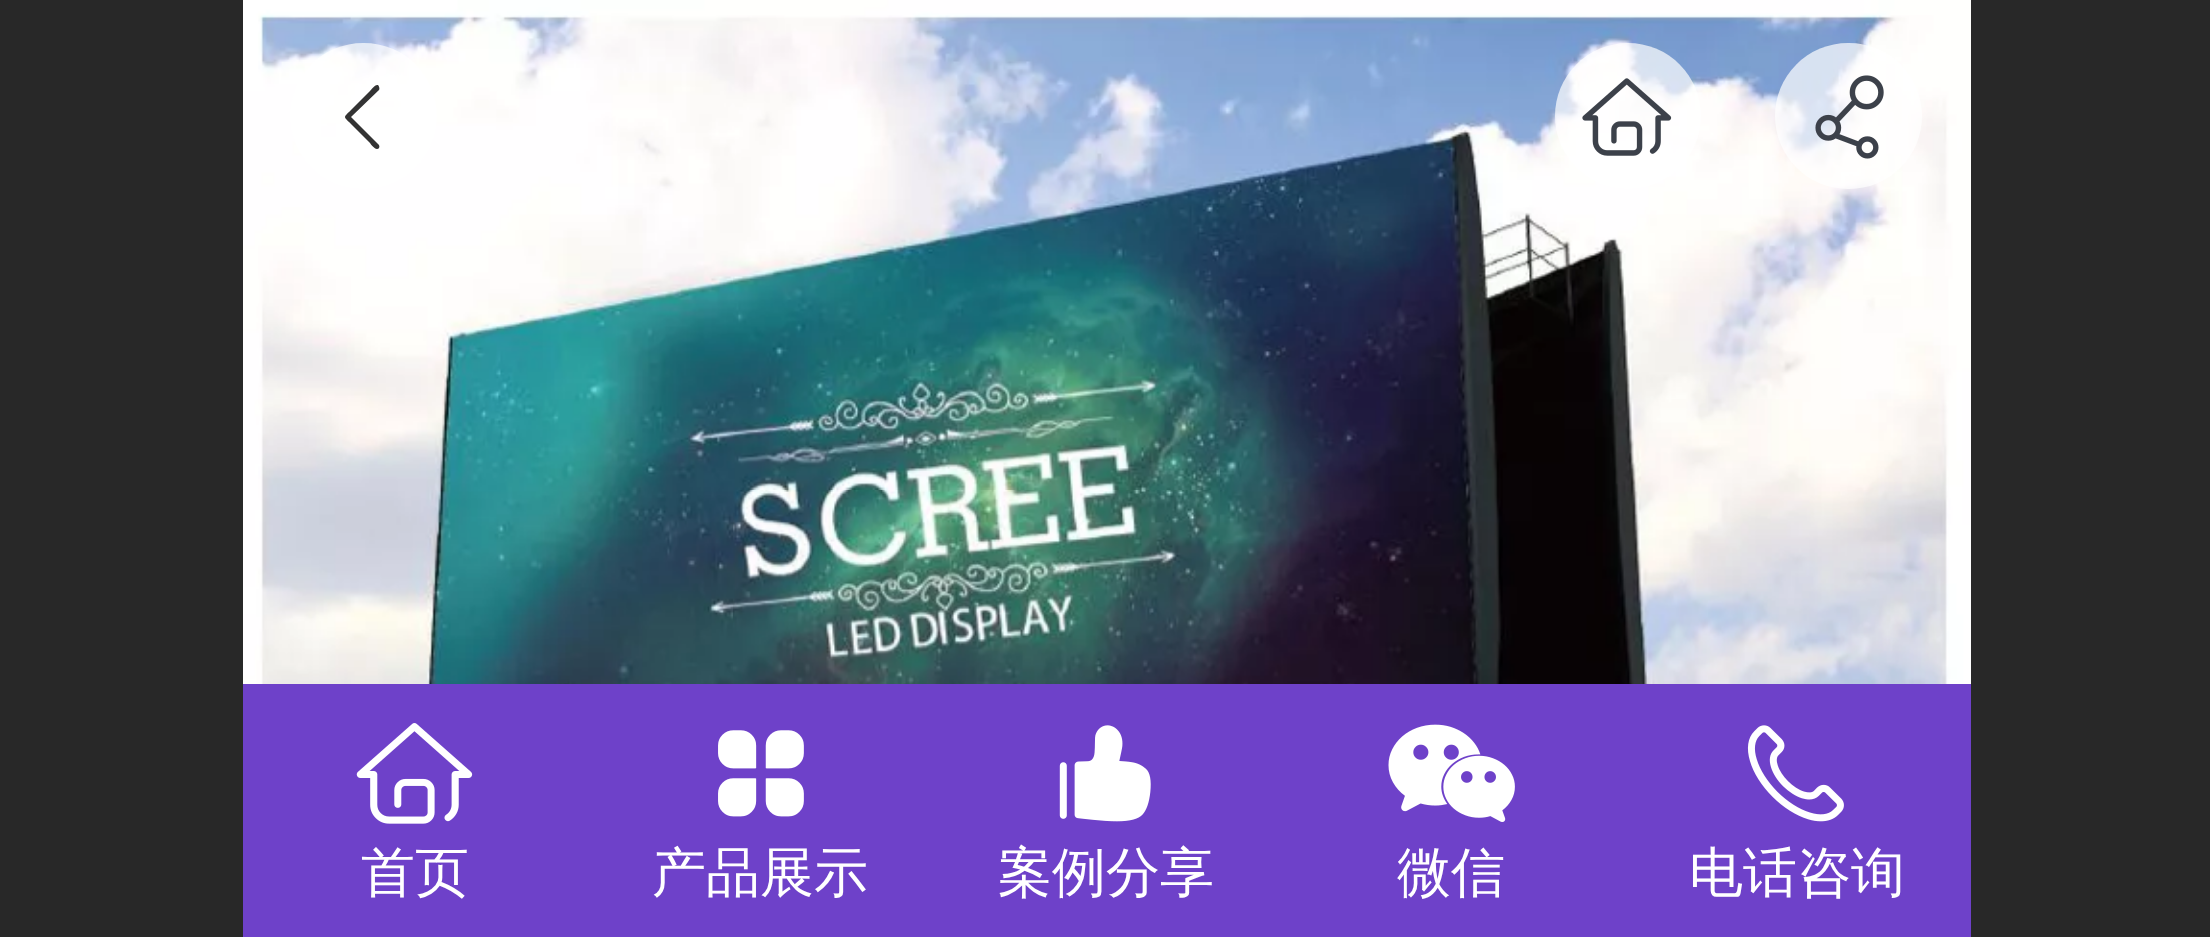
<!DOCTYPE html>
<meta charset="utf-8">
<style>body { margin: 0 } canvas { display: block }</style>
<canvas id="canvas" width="2210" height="937"></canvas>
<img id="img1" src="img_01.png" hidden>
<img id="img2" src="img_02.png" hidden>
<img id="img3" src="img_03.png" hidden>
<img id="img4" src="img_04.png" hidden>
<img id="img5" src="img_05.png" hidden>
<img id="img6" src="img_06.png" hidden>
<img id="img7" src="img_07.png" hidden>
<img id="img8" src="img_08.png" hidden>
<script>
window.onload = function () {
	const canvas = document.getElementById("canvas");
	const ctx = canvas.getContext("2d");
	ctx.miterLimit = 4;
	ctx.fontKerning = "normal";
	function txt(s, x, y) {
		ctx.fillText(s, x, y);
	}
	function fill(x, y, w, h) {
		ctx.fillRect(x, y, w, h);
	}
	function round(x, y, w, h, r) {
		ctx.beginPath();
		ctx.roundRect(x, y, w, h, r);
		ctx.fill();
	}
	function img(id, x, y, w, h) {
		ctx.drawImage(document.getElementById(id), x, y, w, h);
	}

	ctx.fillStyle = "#FFFFFF";
	fill(0, 0, 2210, 937);
	ctx.fillStyle = "#282828";
	fill(0, 0, 243, 937);
	img("img1", 243, 0, 1728, 684);
	ctx.fillStyle = "rgba(255, 255, 255, 0.7)";
	round(290, 43, 147, 146, 73);
	ctx.fillStyle = "#333333";
	ctx.beginPath();
	ctx.moveTo(377, 149);
	ctx.bezierCurveTo(374, 149, 370, 143, 370, 143);
	ctx.lineTo(351, 124);
	ctx.bezierCurveTo(343, 116, 343, 118, 351, 110);
	ctx.lineTo(370, 91);
	ctx.bezierCurveTo(371, 90, 375, 84, 378, 85);
	ctx.bezierCurveTo(379, 86, 380, 89, 379, 90);
	ctx.lineTo(351, 117);
	ctx.lineTo(379, 145);
	ctx.bezierCurveTo(380, 147, 379, 149, 377, 149);
	ctx.closePath();
	ctx.fill();
	ctx.fillStyle = "rgba(255, 255, 255, 0.7)";
	ctx.beginPath();
	ctx.arc(1628, 116, 73, 0, Math.PI * 2);
	ctx.fill();
	img("img2", 1582, 78, 90, 78);
	round(1775, 43, 147, 146, 73);
	img("img3", 1815, 75, 69, 84);
	ctx.fillStyle = "#6E41C9";
	fill(243, 684, 1728, 253);
	img("img4", 356, 723, 117, 101);
	img("img5", 718, 730, 86, 87);
	img("img6", 1059, 725, 92, 97);
	img("img7", 1388, 724, 127, 98);
	img("img8", 1747, 725, 97, 97);
	ctx.fillStyle = "#282828";
	fill(1971, 0, 239, 937);
	ctx.font = "500 54px WenQuanYi Zen Hei";
	ctx.fillStyle = "#FFFFFF";
	txt("首页", 361, 891);
	txt("产品展示", 652, 891);
	txt("案例分享", 998, 891);
	txt("微信", 1397, 891);
	txt("电话咨询", 1689, 891);
};
</script>
